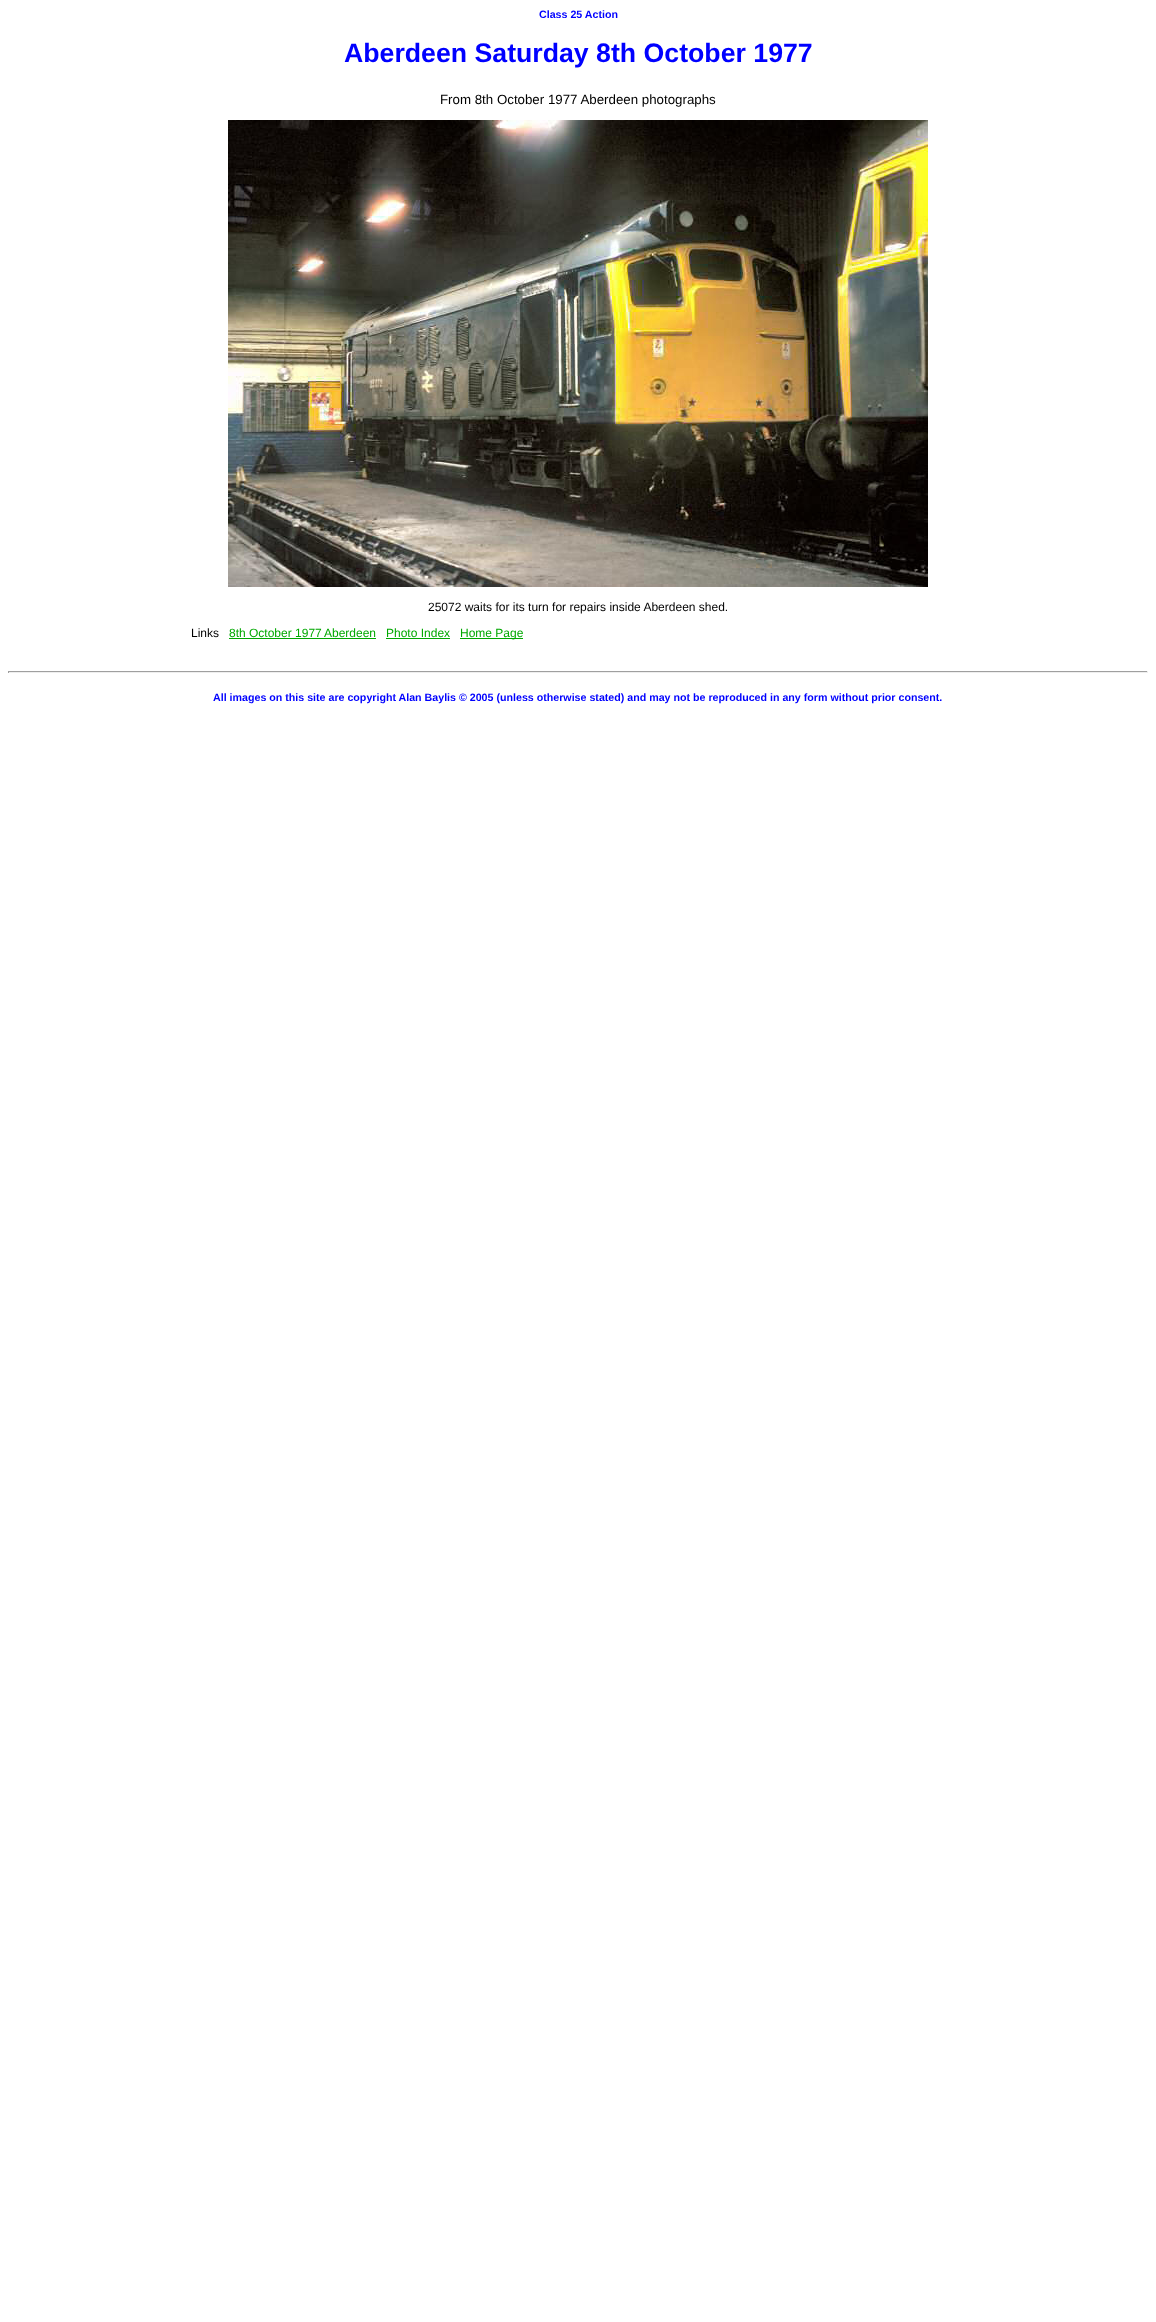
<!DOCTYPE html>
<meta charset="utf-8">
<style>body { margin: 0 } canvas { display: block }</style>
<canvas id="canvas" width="1156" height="2322"></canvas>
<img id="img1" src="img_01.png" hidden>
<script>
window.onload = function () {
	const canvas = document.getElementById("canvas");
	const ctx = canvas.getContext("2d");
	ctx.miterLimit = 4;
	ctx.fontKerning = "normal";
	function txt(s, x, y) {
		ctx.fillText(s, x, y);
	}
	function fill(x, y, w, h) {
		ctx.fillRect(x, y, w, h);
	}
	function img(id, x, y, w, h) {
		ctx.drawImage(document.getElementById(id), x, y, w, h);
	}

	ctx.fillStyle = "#FFFFFF";
	fill(0, 0, 1156, 2322);
	img("img1", 228, 120, 700, 467);
	ctx.fillStyle = "#00A800";
	fill(229, 638, 147, 1);
	fill(386, 638, 64, 1);
	fill(460, 638, 63, 1);
	ctx.fillStyle = "#9F9F9F";
	fill(8, 671, 1140, 1);
	ctx.fillStyle = "#EEEEEE";
	fill(1147, 671, 1, 2);
	fill(8, 672, 1140, 1);
	ctx.fillStyle = "#9F9F9F";
	fill(8, 671, 1, 2);
	ctx.font = "bold 10.67px Liberation Sans";
	ctx.fillStyle = "#0000FF";
	txt("Class 25 Action", 539, 18);
	ctx.font = "bold 26.7px Liberation Sans";
	txt("Aberdeen Saturday 8th October 1977", 344, 62);
	ctx.font = "13.3px Liberation Sans";
	ctx.fillStyle = "#000000";
	txt("From 8th October 1977 Aberdeen photographs", 440, 104);
	ctx.font = "12px Liberation Sans";
	txt("25072 waits for its turn for repairs inside Aberdeen shed.", 428, 611);
	txt("Links", 191, 637);
	ctx.fillStyle = "#00A800";
	txt("8th October 1977", 229, 637);
	txt("Aberdeen", 324, 637);
	txt("Photo Index", 386, 637);
	txt("Home Page", 460, 637);
	ctx.font = "bold 10.67px Liberation Sans";
	ctx.fillStyle = "#0000FF";
	txt("All images on this site are copyright Alan Baylis © 2005 (unless otherwise stated) and may not be reproduced in any form without prior consent.", 213, 701);
};
</script>
